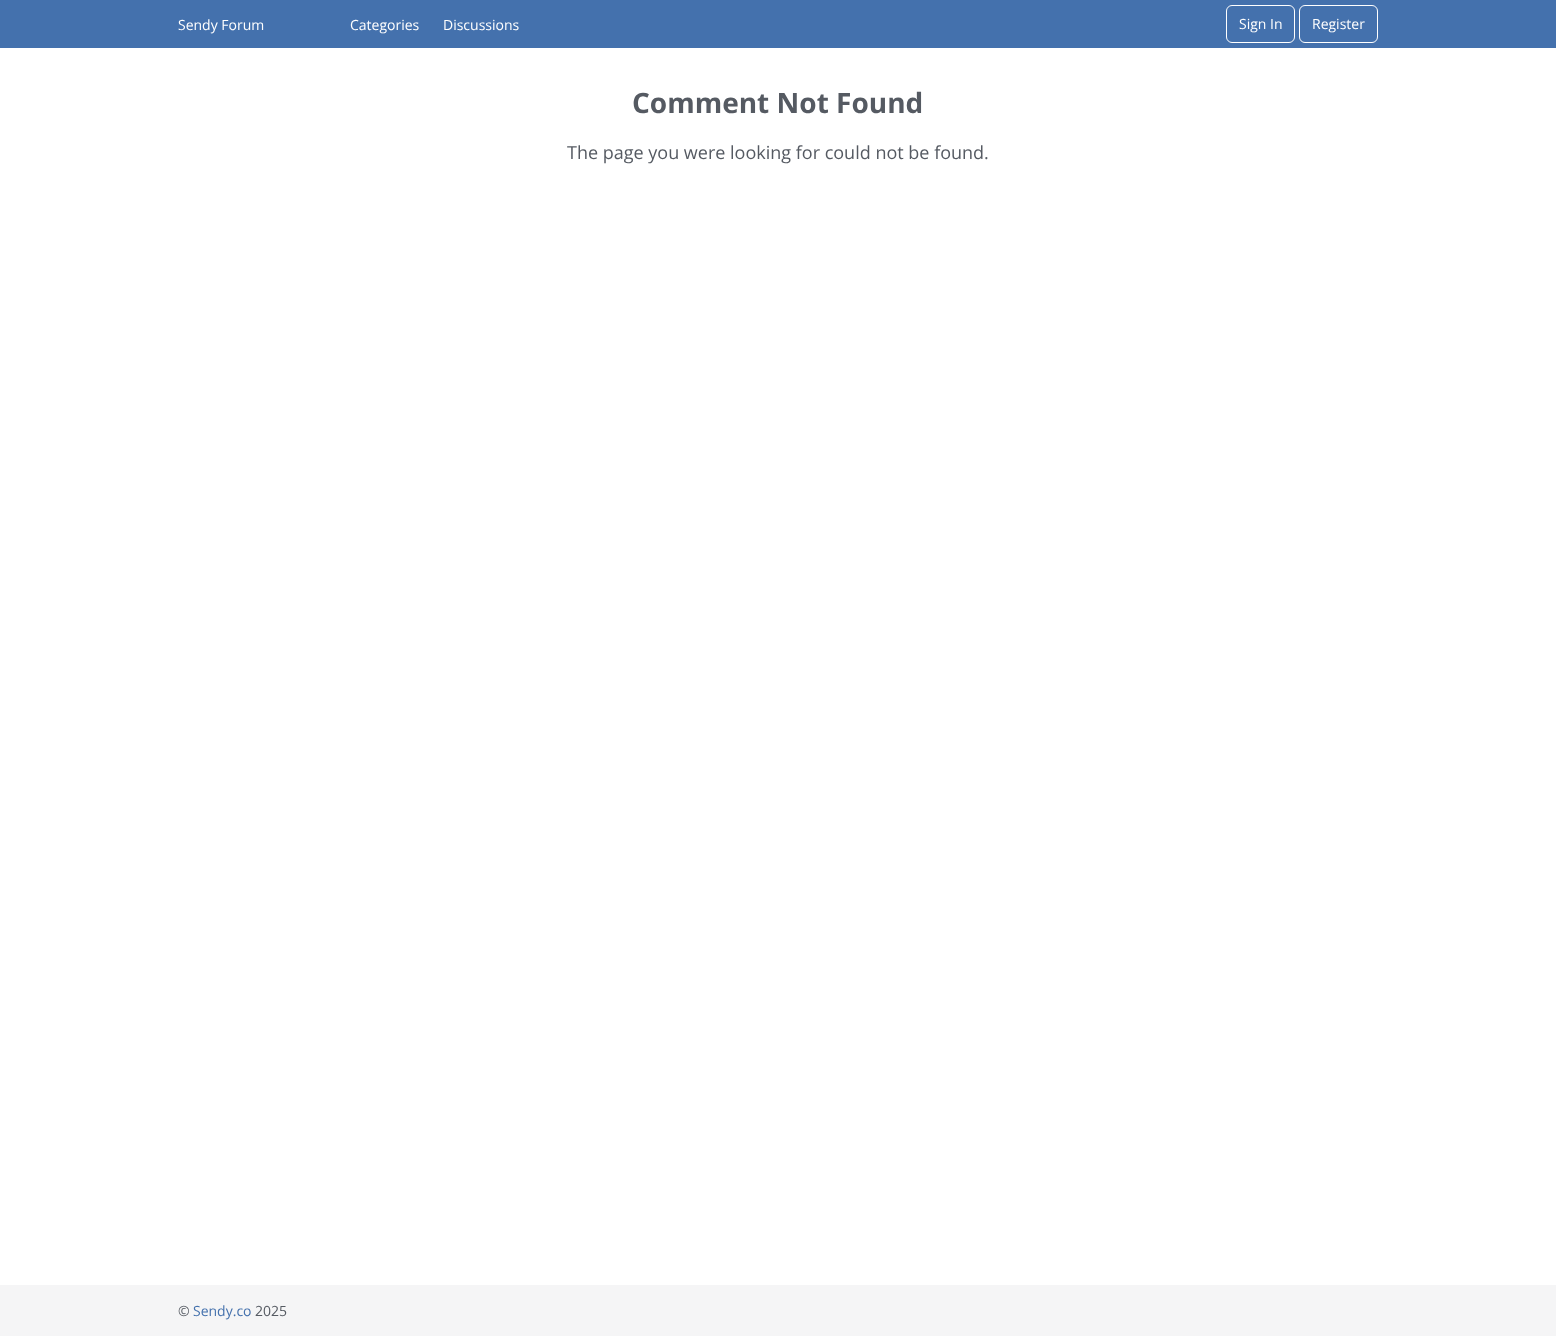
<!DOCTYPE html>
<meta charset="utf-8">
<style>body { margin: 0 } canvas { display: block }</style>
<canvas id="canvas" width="1556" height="1336"></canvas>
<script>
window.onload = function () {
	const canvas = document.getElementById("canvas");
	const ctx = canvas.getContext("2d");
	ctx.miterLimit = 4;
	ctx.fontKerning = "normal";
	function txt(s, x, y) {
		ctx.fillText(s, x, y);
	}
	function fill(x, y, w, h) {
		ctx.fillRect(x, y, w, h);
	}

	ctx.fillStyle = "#FFFFFF";
	fill(0, 0, 1556, 1336);
	ctx.fillStyle = "#4471AD";
	fill(0, 0, 1556, 48);
	ctx.beginPath();
	ctx.roundRect(1226.5, 5.5, 68, 37, 5.5);
	ctx.strokeStyle = "#FFFFFF";
	ctx.stroke();
	ctx.beginPath();
	ctx.roundRect(1299.5, 5.5, 78, 37, 5.5);
	ctx.stroke();
	ctx.fillStyle = "#F5F5F6";
	fill(0, 1285, 1556, 51);
	ctx.font = "14px Open Sans";
	ctx.fillStyle = "#FFFFFF";
	txt("Sendy Forum", 178, 30);
	txt("Categories", 350, 30);
	txt("Discussions", 443, 30);
	txt("Sign In", 1239, 29);
	txt("Register", 1312, 29);
	ctx.font = "bold 28px Open Sans";
	ctx.fillStyle = "#555A62";
	txt("Comment Not Found", 632, 113);
	ctx.font = "18px Open Sans";
	txt("The page you were looking for could not be found.", 567, 159);
	ctx.font = "14px Open Sans";
	txt("©", 178, 1316);
	ctx.fillStyle = "#4471AD";
	txt("Sendy.co", 193, 1316);
	ctx.fillStyle = "#555A62";
	txt("2025", 255, 1316);
};
</script>
